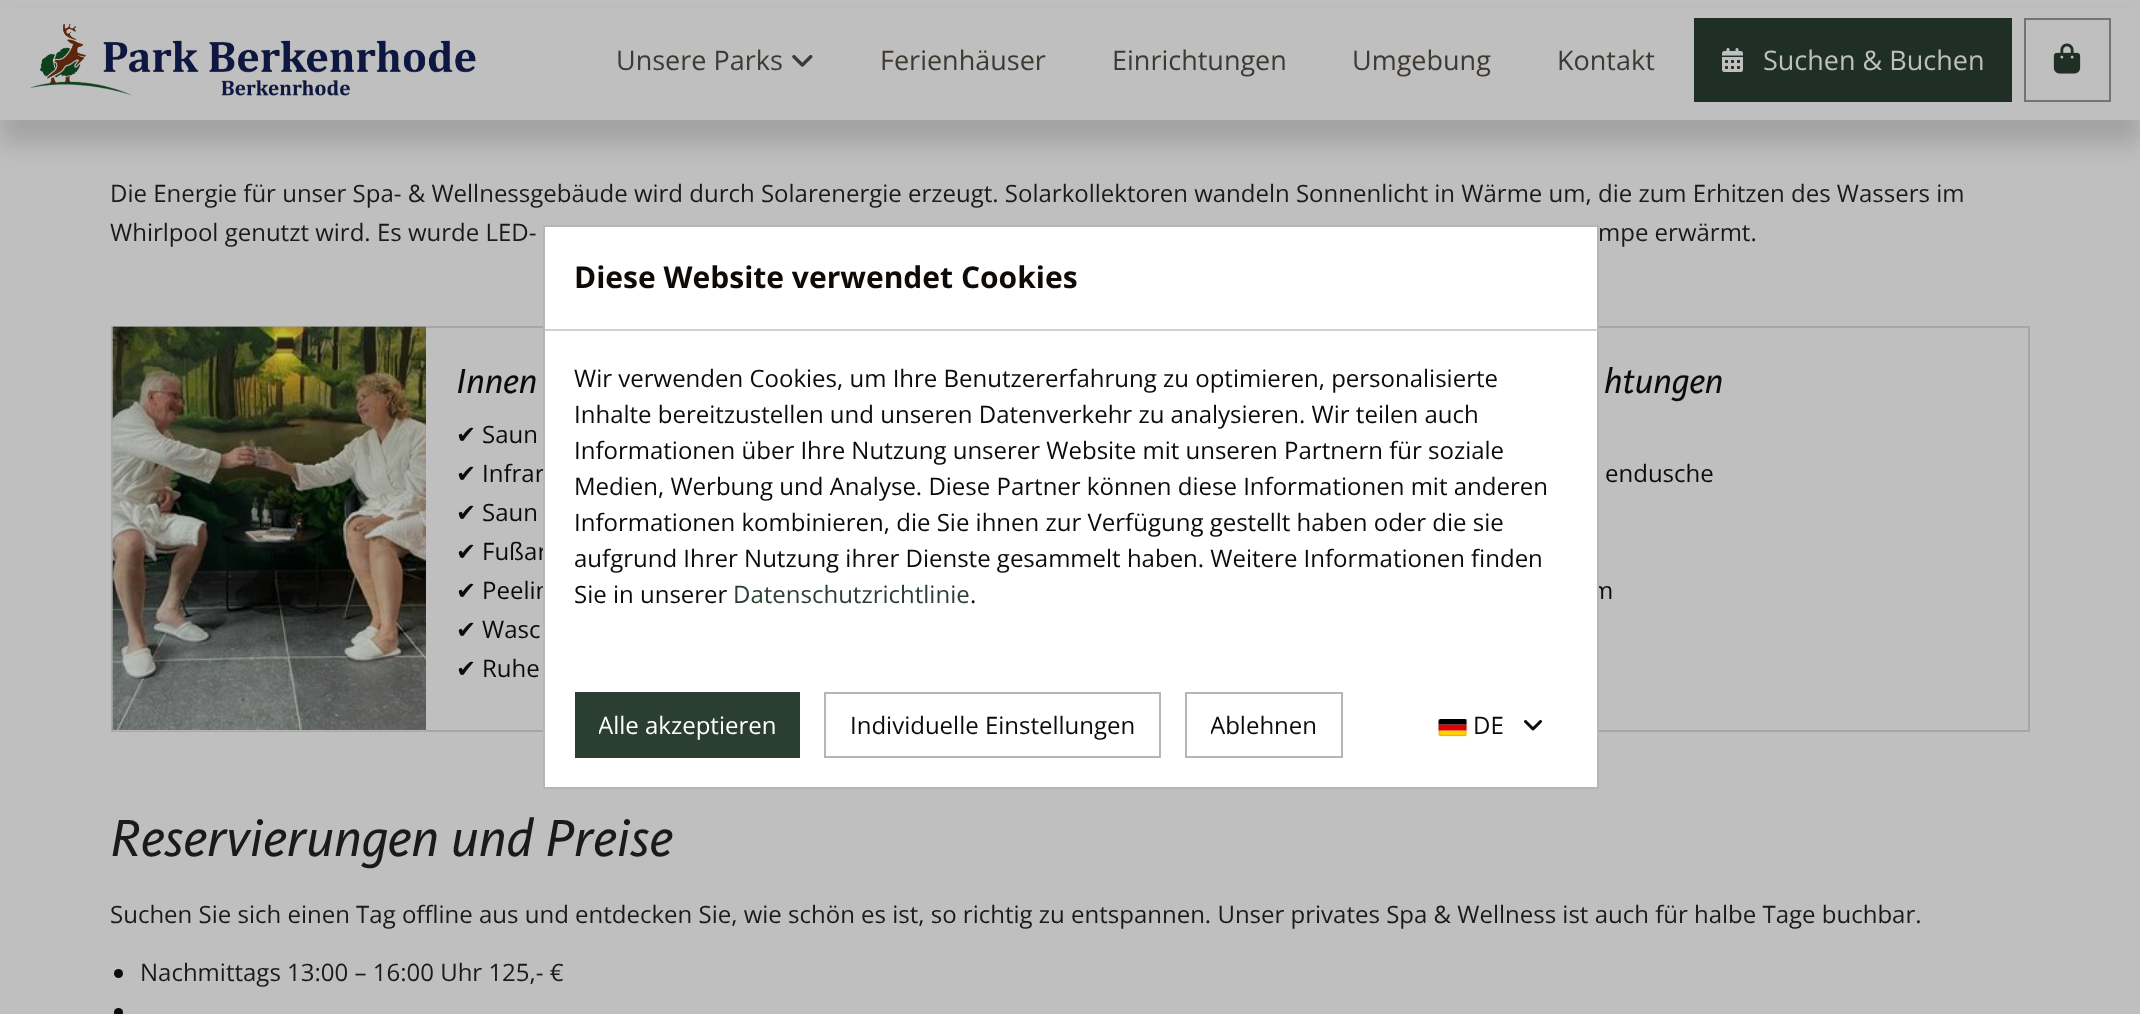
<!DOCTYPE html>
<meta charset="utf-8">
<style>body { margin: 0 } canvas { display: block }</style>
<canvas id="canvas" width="2140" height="1014"></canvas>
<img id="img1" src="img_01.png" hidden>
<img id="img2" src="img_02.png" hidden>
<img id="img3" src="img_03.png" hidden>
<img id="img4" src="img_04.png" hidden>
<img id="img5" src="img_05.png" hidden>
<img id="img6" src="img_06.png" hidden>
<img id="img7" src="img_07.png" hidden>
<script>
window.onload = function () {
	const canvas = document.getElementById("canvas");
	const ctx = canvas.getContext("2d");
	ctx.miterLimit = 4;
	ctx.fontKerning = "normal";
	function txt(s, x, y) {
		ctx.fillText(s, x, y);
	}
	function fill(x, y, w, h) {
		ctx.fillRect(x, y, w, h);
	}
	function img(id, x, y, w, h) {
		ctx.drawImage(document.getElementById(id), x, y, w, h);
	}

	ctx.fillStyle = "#BFBFBF";
	fill(0, 0, 2140, 1014);
	ctx.fillStyle = "rgba(0, 0, 0, 0.15)";
	ctx.filter = "blur(12px)";
	ctx.beginPath();
	ctx.rect(0, 24, 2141, 120);
	ctx.fill();
	ctx.filter = "none";
	ctx.fillStyle = "#BFBFBF";
	fill(0, 8, 2140, 112);
	img("img1", 30, 24, 446, 72);
	img("img2", 792, 54, 21, 13);
	ctx.fillStyle = "#202F26";
	fill(1694, 18, 318, 84);
	img("img3", 1722, 48, 21, 24);
	ctx.strokeStyle = "#707773";
	ctx.lineWidth = 2;
	ctx.strokeRect(2025, 19, 85, 82);
	img("img4", 2053, 43, 28, 31);
	ctx.strokeStyle = "#A6A6A6";
	ctx.strokeRect(112, 327, 942, 404);
	ctx.fillStyle = "#B7B7B7";
	fill(113, 730, 313, 1);
	img("img5", 112, 326, 314, 404);
	ctx.strokeRect(1087, 327, 942, 404);
	ctx.fillStyle = "#0D0A07";
	ctx.beginPath();
	ctx.arc(118.5, 973.5, 4.5, 0, Math.PI * 2);
	ctx.fill();
	ctx.beginPath();
	ctx.arc(118.5, 1012.5, 4.5, 0, Math.PI * 2);
	ctx.fill();
	ctx.font = "27px Open Sans";
	ctx.fillStyle = "#3F3934";
	txt("Unsere Parks", 616, 70);
	txt("Ferienhäuser", 880, 70);
	txt("Einrichtungen", 1112, 70);
	txt("Umgebung", 1352, 70);
	txt("Kontakt", 1557, 70);
	ctx.fillStyle = "#BFBFBF";
	txt("Suchen & Buchen", 1763, 70);
	ctx.font = "24px Open Sans";
	ctx.fillStyle = "#1A1A1A";
	txt("Die Energie für unser Spa- & Wellnessgebäude wird durch Solarenergie erzeugt. Solarkollektoren wandeln Sonnenlicht in Wärme um, die zum Erhitzen des Wassers im", 110, 202);
	txt("Whirlpool genutzt wird. Es wurde LED-", 110, 241);
	txt("mpe erwärmt.", 1598, 241);
	ctx.font = "italic 36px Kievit";
	ctx.fillStyle = "#0D0A07";
	txt("Innen", 456, 393);
	ctx.font = "24px DejaVu Sans";
	txt("✔", 456, 443);
	ctx.font = "24px Open Sans";
	txt("Saun", 482, 443);
	ctx.font = "24px DejaVu Sans";
	txt("✔", 456, 482);
	ctx.font = "24px Open Sans";
	txt("Infrar", 482, 482);
	ctx.font = "24px DejaVu Sans";
	txt("✔", 456, 521);
	ctx.font = "24px Open Sans";
	txt("Saun", 482, 521);
	ctx.font = "24px DejaVu Sans";
	txt("✔", 456, 560);
	ctx.font = "24px Open Sans";
	txt("Fußar", 482, 560);
	ctx.font = "24px DejaVu Sans";
	txt("✔", 456, 599);
	ctx.font = "24px Open Sans";
	txt("Peelin", 482, 599);
	ctx.font = "24px DejaVu Sans";
	txt("✔", 456, 638);
	ctx.font = "24px Open Sans";
	txt("Wasc", 482, 638);
	ctx.font = "24px DejaVu Sans";
	txt("✔", 456, 677);
	ctx.font = "24px Open Sans";
	txt("Ruhe", 482, 677);
	ctx.font = "italic 36px Kievit";
	txt("htungen", 1604, 393);
	ctx.font = "24px Open Sans";
	txt("endusche", 1605, 482);
	txt("m", 1591, 599);
	ctx.font = "italic 54px Kievit";
	ctx.fillStyle = "#1A1A1A";
	txt("Reservierungen und Preise", 110, 856);
	ctx.font = "24px Open Sans";
	txt("Suchen Sie sich einen Tag offline aus und entdecken Sie, wie schön es ist, so richtig zu entspannen. Unser privates Spa & Wellness ist auch für halbe Tage buchbar.", 110, 923);
	txt("Nachmittags 13:00 – 16:00 Uhr 125,- €", 140, 981);
	ctx.fillStyle = "#FFFFFF";
	ctx.beginPath();
	ctx.rect(544, 226, 1054, 562);
	ctx.fill();
	ctx.strokeStyle = "#B8B6B5";
	ctx.stroke();
	ctx.fillStyle = "#CFCFCE";
	fill(545, 329, 1053, 2);
	ctx.font = "bold 30px Open Sans";
	ctx.fillStyle = "#0D0A07";
	txt("Diese Website verwendet Cookies", 574, 288);
	ctx.font = "24px Open Sans";
	txt("Wir verwenden Cookies, um Ihre Benutzererfahrung zu optimieren, personalisierte", 574, 387);
	txt("Inhalte bereitzustellen und unseren Datenverkehr zu analysieren. Wir teilen auch", 574, 423);
	txt("Informationen über Ihre Nutzung unserer Website mit unseren Partnern für soziale", 574, 459);
	txt("Medien, Werbung und Analyse. Diese Partner können diese Informationen mit anderen", 574, 495);
	txt("Informationen kombinieren, die Sie ihnen zur Verfügung gestellt haben oder die sie", 574, 531);
	txt("aufgrund Ihrer Nutzung ihrer Dienste gesammelt haben. Weitere Informationen finden", 574, 567);
	txt("Sie in unserer", 574, 603);
	ctx.fillStyle = "#2B3E32";
	txt("Datenschutzrichtlinie", 733, 603);
	ctx.fillStyle = "#0D0A07";
	txt(".", 970, 603);
	ctx.fillStyle = "#2B3E32";
	fill(575, 692, 225, 66);
	ctx.save();
	ctx.beginPath();
	ctx.rect(599, 707, 177, 36);
	ctx.clip();
	ctx.fillStyle = "#FFFFFF";
	txt("Alle akzeptieren", 598, 734);
	ctx.restore();
	ctx.strokeRect(825, 693, 335, 64);
	ctx.fillStyle = "#0D0A07";
	txt("Individuelle Einstellungen", 850, 734);
	ctx.strokeRect(1186, 693, 156, 64);
	ctx.save();
	ctx.beginPath();
	ctx.rect(1211, 707, 106, 36);
	ctx.clip();
	txt("Ablehnen", 1210, 734);
	ctx.restore();
	img("img6", 1438, 719, 30, 18);
	txt("DE", 1473, 734);
	img("img7", 1524, 720, 18, 11);
};
</script>
